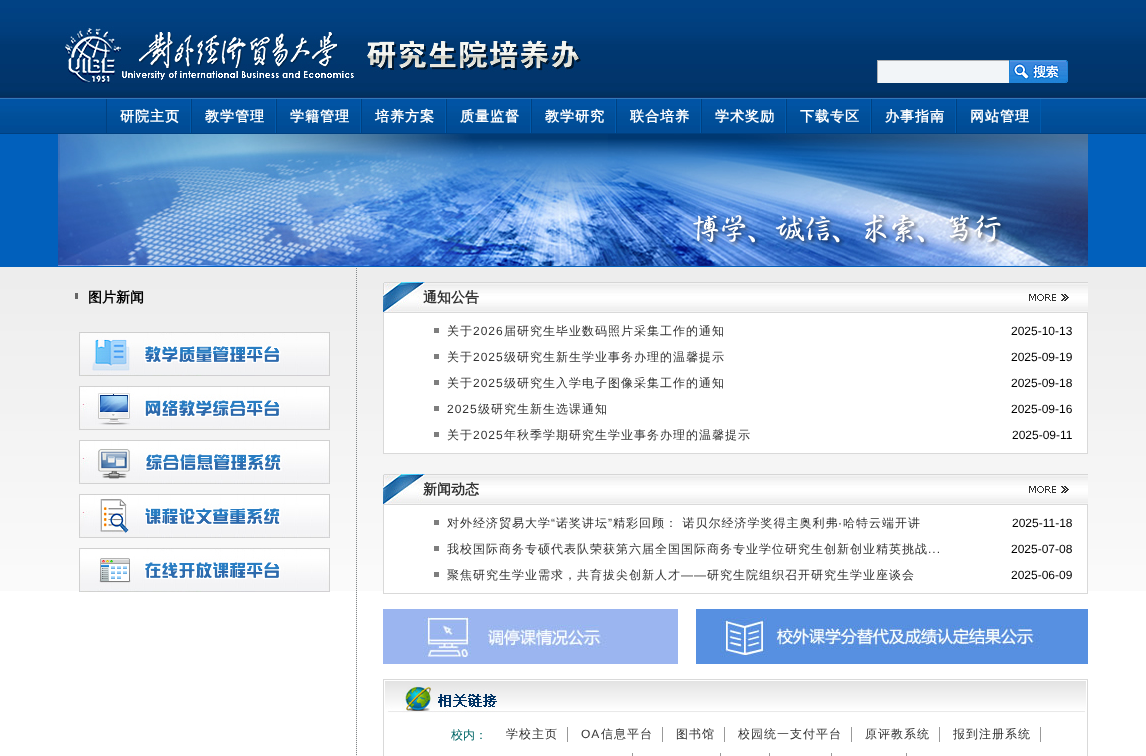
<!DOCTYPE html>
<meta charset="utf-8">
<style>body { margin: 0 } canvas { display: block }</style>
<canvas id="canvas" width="1146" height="756"></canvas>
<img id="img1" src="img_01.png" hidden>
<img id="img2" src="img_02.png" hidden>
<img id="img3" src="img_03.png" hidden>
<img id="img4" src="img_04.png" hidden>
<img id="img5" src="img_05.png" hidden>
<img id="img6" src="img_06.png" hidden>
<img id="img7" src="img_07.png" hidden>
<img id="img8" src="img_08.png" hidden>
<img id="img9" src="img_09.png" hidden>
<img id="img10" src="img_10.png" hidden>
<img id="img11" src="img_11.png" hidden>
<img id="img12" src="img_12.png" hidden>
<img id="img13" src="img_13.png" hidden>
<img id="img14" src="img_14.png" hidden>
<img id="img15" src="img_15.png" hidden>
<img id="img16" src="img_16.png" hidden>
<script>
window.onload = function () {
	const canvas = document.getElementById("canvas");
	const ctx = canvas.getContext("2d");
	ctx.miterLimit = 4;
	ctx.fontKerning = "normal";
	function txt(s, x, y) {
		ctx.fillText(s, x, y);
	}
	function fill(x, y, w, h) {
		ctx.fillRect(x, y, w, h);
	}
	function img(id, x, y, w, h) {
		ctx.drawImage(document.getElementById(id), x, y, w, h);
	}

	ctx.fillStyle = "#FFFFFF";
	fill(0, 0, 1146, 756);
	img("img1", 0, 0, 1146, 591);
	img("img2", 65, 26, 516, 58);
	ctx.fillStyle = "#F2F5F8";
	fill(878, 61, 131, 22);
	ctx.save();
	ctx.beginPath();
	ctx.rect(877, 60, 132, 23);
	ctx.clip();
	ctx.strokeStyle = "#AEB0B3";
	ctx.strokeRect(877.5, 60.5, 133, 25);
	ctx.restore();
	img("img3", 1009, 60, 59, 23);
	ctx.fillStyle = "#005BAE";
	fill(190, 99, 1, 34);
	ctx.fillStyle = "#004181";
	fill(106, 99, 1, 34);
	ctx.fillStyle = "#005BAE";
	fill(275, 99, 1, 34);
	ctx.fillStyle = "#004181";
	fill(191, 99, 1, 34);
	ctx.fillStyle = "#005BAE";
	fill(360, 99, 1, 34);
	ctx.fillStyle = "#004181";
	fill(276, 99, 1, 34);
	ctx.fillStyle = "#005BAE";
	fill(445, 99, 1, 34);
	ctx.fillStyle = "#004181";
	fill(361, 99, 1, 34);
	ctx.fillStyle = "#005BAE";
	fill(530, 99, 1, 34);
	ctx.fillStyle = "#004181";
	fill(446, 99, 1, 34);
	ctx.fillStyle = "#005BAE";
	fill(615, 99, 1, 34);
	ctx.fillStyle = "#004181";
	fill(531, 99, 1, 34);
	ctx.fillStyle = "#005BAE";
	fill(700, 99, 1, 34);
	ctx.fillStyle = "#004181";
	fill(616, 99, 1, 34);
	ctx.fillStyle = "#005BAE";
	fill(785, 99, 1, 34);
	ctx.fillStyle = "#004181";
	fill(701, 99, 1, 34);
	ctx.fillStyle = "#005BAE";
	fill(870, 99, 1, 34);
	ctx.fillStyle = "#004181";
	fill(786, 99, 1, 34);
	ctx.fillStyle = "#005BAE";
	fill(955, 99, 1, 34);
	ctx.fillStyle = "#004181";
	fill(871, 99, 1, 34);
	ctx.fillStyle = "#005BAE";
	fill(1040, 99, 1, 34);
	ctx.fillStyle = "#004181";
	fill(956, 99, 1, 34);
	img("img4", 58, 134, 1030, 132);
	img("img5", 356, 268, 1, 488);
	ctx.fillStyle = "#666666";
	fill(75, 293, 3, 6);
	img("img6", 79, 332, 251, 44);
	img("img7", 79, 386, 251, 44);
	img("img8", 79, 440, 251, 44);
	img("img9", 79, 494, 251, 44);
	img("img10", 79, 548, 251, 44);
	ctx.fillStyle = "#FFFFFF";
	fill(384, 313, 703, 140);
	img("img11", 383, 282, 705, 31);
	img("img12", 383, 282, 43, 30);
	img("img13", 1029, 294, 40, 7);
	ctx.fillStyle = "#D9D9D9";
	fill(1087, 313, 1, 141);
	fill(383, 453, 705, 1);
	fill(383, 313, 1, 141);
	ctx.fillStyle = "#7E7E7E";
	fill(434, 328, 5, 5);
	fill(434, 354, 5, 5);
	fill(434, 380, 5, 5);
	fill(434, 406, 5, 5);
	fill(434, 432, 5, 5);
	ctx.fillStyle = "#FFFFFF";
	fill(384, 505, 703, 86);
	img("img11", 383, 474, 705, 31);
	img("img12", 383, 474, 43, 30);
	img("img13", 1029, 486, 40, 7);
	ctx.fillStyle = "#D9D9D9";
	fill(1087, 505, 1, 89);
	fill(383, 593, 705, 1);
	fill(383, 505, 1, 89);
	ctx.fillStyle = "#7E7E7E";
	fill(434, 520, 5, 5);
	fill(434, 546, 5, 5);
	fill(434, 572, 5, 5);
	img("img14", 383, 609, 295, 55);
	img("img15", 696, 609, 392, 55);
	img("img16", 385, 681, 701, 32);
	ctx.strokeStyle = "#D9D9D9";
	ctx.strokeRect(383.5, 679.5, 704, 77);
	ctx.fillStyle = "#999999";
	fill(567, 727, 1, 15);
	fill(662, 727, 1, 15);
	fill(724, 727, 1, 15);
	fill(851, 727, 1, 15);
	fill(939, 727, 1, 15);
	fill(1040, 727, 1, 15);
	fill(632, 753, 1, 3);
	fill(720, 753, 1, 3);
	fill(769, 753, 1, 3);
	fill(831, 753, 1, 3);
	fill(906, 753, 1, 3);
	ctx.letterSpacing = "1px";
	ctx.font = "bold 14px WenQuanYi Zen Hei";
	ctx.fillStyle = "#FFFFFF";
	txt("研院主页", 120, 121);
	txt("教学管理", 205, 121);
	txt("学籍管理", 290, 121);
	txt("培养方案", 375, 121);
	txt("质量监督", 460, 121);
	txt("教学研究", 545, 121);
	txt("联合培养", 630, 121);
	txt("学术奖励", 715, 121);
	txt("下载专区", 800, 121);
	txt("办事指南", 885, 121);
	txt("网站管理", 970, 121);
	ctx.letterSpacing = "0px";
	ctx.fillStyle = "#000000";
	txt("图片新闻", 88, 302);
	ctx.fillStyle = "#333333";
	txt("通知公告", 423, 302);
	ctx.letterSpacing = "1px";
	ctx.font = "500 12px WenQuanYi Zen Hei";
	txt("关于", 447, 335);
	ctx.font = "12px Liberation Sans";
	txt("2026", 473, 335);
	ctx.font = "500 12px WenQuanYi Zen Hei";
	txt("届研究生毕业数码照片采集工作的通知", 504, 335);
	ctx.letterSpacing = "0px";
	ctx.font = "12px Liberation Sans";
	ctx.fillStyle = "#000000";
	txt("2025-10-13", 1011, 335);
	ctx.letterSpacing = "1px";
	ctx.font = "500 12px WenQuanYi Zen Hei";
	ctx.fillStyle = "#333333";
	txt("关于", 447, 361);
	ctx.font = "12px Liberation Sans";
	txt("2025", 473, 361);
	ctx.font = "500 12px WenQuanYi Zen Hei";
	txt("级研究生新生学业事务办理的温馨提示", 504, 361);
	ctx.letterSpacing = "0px";
	ctx.font = "12px Liberation Sans";
	ctx.fillStyle = "#000000";
	txt("2025-09-19", 1011, 361);
	ctx.letterSpacing = "1px";
	ctx.font = "500 12px WenQuanYi Zen Hei";
	ctx.fillStyle = "#333333";
	txt("关于", 447, 387);
	ctx.font = "12px Liberation Sans";
	txt("2025", 473, 387);
	ctx.font = "500 12px WenQuanYi Zen Hei";
	txt("级研究生入学电子图像采集工作的通知", 504, 387);
	ctx.letterSpacing = "0px";
	ctx.font = "12px Liberation Sans";
	ctx.fillStyle = "#000000";
	txt("2025-09-18", 1011, 387);
	ctx.letterSpacing = "1px";
	ctx.fillStyle = "#333333";
	txt("2025", 447, 413);
	ctx.font = "500 12px WenQuanYi Zen Hei";
	txt("级研究生新生选课通知", 478, 413);
	ctx.letterSpacing = "0px";
	ctx.font = "12px Liberation Sans";
	ctx.fillStyle = "#000000";
	txt("2025-09-16", 1011, 413);
	ctx.letterSpacing = "1px";
	ctx.font = "500 12px WenQuanYi Zen Hei";
	ctx.fillStyle = "#333333";
	txt("关于", 447, 439);
	ctx.font = "12px Liberation Sans";
	txt("2025", 473, 439);
	ctx.font = "500 12px WenQuanYi Zen Hei";
	txt("年秋季学期研究生学业事务办理的温馨提示", 504, 439);
	ctx.letterSpacing = "0px";
	ctx.font = "12px Liberation Sans";
	ctx.fillStyle = "#000000";
	txt("2025-09-11", 1012, 439);
	ctx.font = "bold 14px WenQuanYi Zen Hei";
	ctx.fillStyle = "#333333";
	txt("新闻动态", 423, 494);
	ctx.letterSpacing = "1px";
	ctx.font = "500 12px WenQuanYi Zen Hei";
	txt("对外经济贸易大学", 447, 527);
	ctx.font = "12px Liberation Sans";
	txt("“", 551, 527);
	ctx.font = "500 12px WenQuanYi Zen Hei";
	txt("诺奖讲坛", 556, 527);
	ctx.font = "12px Liberation Sans";
	txt("”", 608, 527);
	ctx.font = "500 12px WenQuanYi Zen Hei";
	txt("精彩回顾： 诺贝尔经济学奖得主奥利弗", 613, 527);
	ctx.font = "12px Liberation Sans";
	txt("·", 838, 527);
	ctx.font = "500 12px WenQuanYi Zen Hei";
	txt("哈特云端开讲", 843, 527);
	ctx.letterSpacing = "0px";
	ctx.font = "12px Liberation Sans";
	ctx.fillStyle = "#000000";
	txt("2025-11-18", 1012, 527);
	ctx.letterSpacing = "1px";
	ctx.font = "500 12px WenQuanYi Zen Hei";
	ctx.fillStyle = "#333333";
	txt("我校国际商务专硕代表队荣获第六届全国国际商务专业学位研究生创新创业精英挑战", 447, 553);
	ctx.font = "12px Liberation Sans";
	txt("...", 928, 553);
	ctx.letterSpacing = "0px";
	ctx.fillStyle = "#000000";
	txt("2025-07-08", 1011, 553);
	ctx.letterSpacing = "1px";
	ctx.font = "500 12px WenQuanYi Zen Hei";
	ctx.fillStyle = "#333333";
	txt("聚焦研究生学业需求，共育拔尖创新人才", 447, 579);
	ctx.font = "12px Liberation Sans";
	txt("——", 681, 579);
	ctx.font = "500 12px WenQuanYi Zen Hei";
	txt("研究生院组织召开研究生学业座谈会", 707, 579);
	ctx.letterSpacing = "0px";
	ctx.font = "12px Liberation Sans";
	ctx.fillStyle = "#000000";
	txt("2025-06-09", 1011, 579);
	ctx.font = "500 12px WenQuanYi Zen Hei";
	ctx.fillStyle = "#006666";
	txt("校内：", 451, 739);
	ctx.letterSpacing = "1px";
	ctx.fillStyle = "#333333";
	txt("学校主页", 506, 738);
	ctx.font = "12px Liberation Sans";
	txt("OA", 581, 738);
	ctx.font = "500 12px WenQuanYi Zen Hei";
	txt("信息平台", 601, 738);
	txt("图书馆", 676, 738);
	txt("校园统一支付平台", 738, 738);
	txt("原评教系统", 865, 738);
	txt("报到注册系统", 953, 738);
};
</script>
